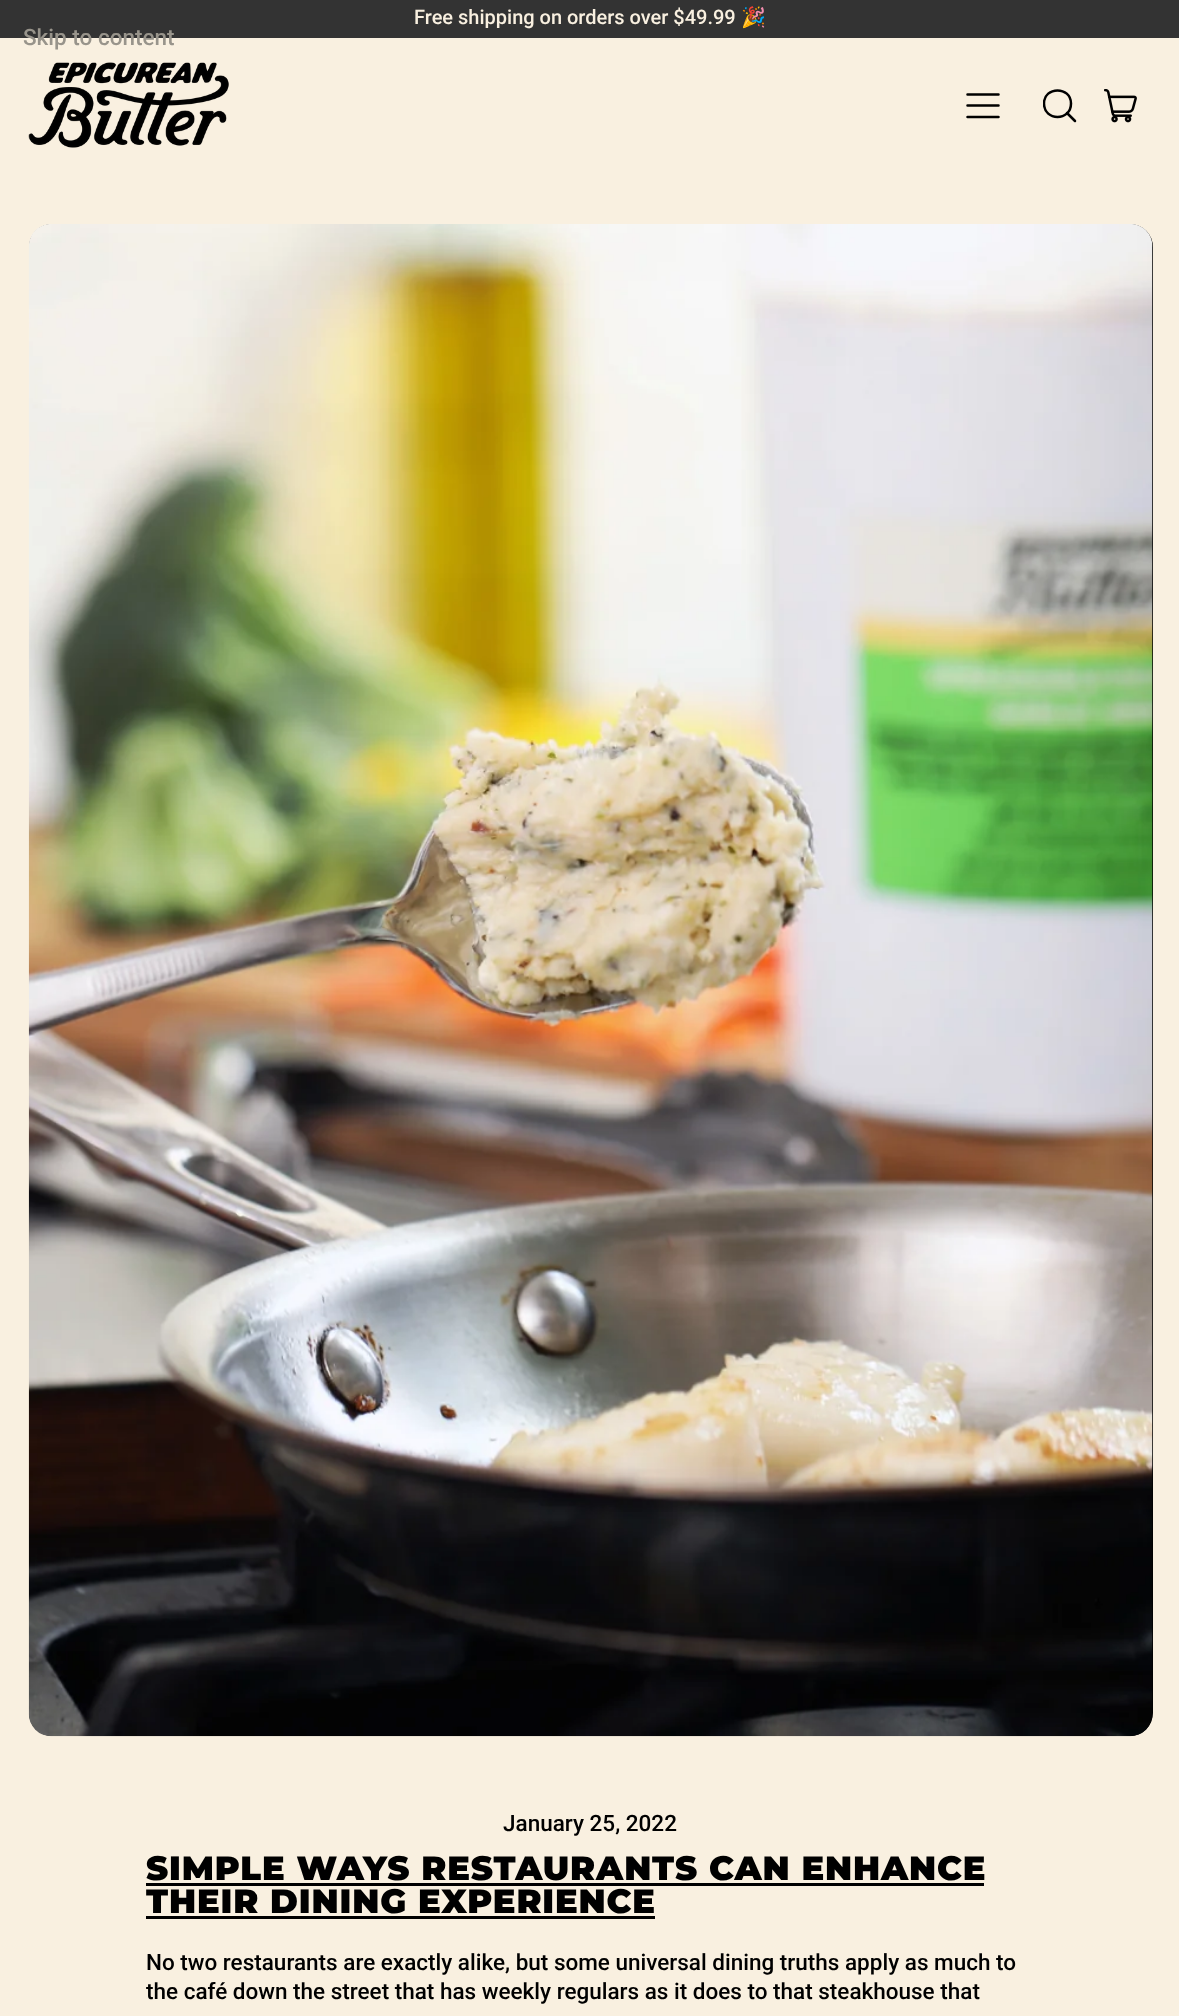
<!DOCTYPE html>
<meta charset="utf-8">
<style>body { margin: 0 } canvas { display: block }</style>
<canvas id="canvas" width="1179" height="2016"></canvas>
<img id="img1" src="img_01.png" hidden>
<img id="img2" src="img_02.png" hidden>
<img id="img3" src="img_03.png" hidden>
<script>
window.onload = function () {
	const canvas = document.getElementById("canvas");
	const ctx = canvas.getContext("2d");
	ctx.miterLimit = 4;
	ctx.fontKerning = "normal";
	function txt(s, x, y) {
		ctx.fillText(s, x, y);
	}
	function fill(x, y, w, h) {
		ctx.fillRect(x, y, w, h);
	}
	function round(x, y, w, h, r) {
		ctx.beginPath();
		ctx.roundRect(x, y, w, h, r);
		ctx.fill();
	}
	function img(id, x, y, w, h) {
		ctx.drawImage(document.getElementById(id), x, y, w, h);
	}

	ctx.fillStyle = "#F9F0E0";
	fill(0, 0, 1179, 2016);
	ctx.fillStyle = "#333333";
	fill(0, 0, 1179, 38);
	img("img1", 28, 62, 201, 86);
	ctx.beginPath();
	ctx.moveTo(998.5, 117);
	ctx.lineTo(967.5, 117);
	ctx.moveTo(998.5, 105.5);
	ctx.lineTo(967.5, 105.5);
	ctx.moveTo(998.5, 94.5);
	ctx.lineTo(967.5, 94.5);
	ctx.strokeStyle = "#000000";
	ctx.lineWidth = 2.5;
	ctx.lineCap = "round";
	ctx.lineJoin = "round";
	ctx.stroke();
	ctx.save();
	ctx.beginPath();
	ctx.rect(1043, 89, 33, 34);
	ctx.clip();
	ctx.beginPath();
	ctx.moveTo(1044, 103.5);
	ctx.bezierCurveTo(1044, 121.5, 1071, 121.5, 1071, 103.5);
	ctx.bezierCurveTo(1071, 86, 1044, 86, 1044, 103.5);
	ctx.closePath();
	ctx.stroke();
	ctx.restore();
	ctx.beginPath();
	ctx.moveTo(1075, 121);
	ctx.lineTo(1067, 113);
	ctx.stroke();
	img("img2", 1104, 89, 33, 34);
	ctx.fillStyle = "#000000";
	round(29, 224, 1124, 1512, 23);
	img("img3", 28, 224, 1125, 1513);
	fill(146, 1883, 838, 3);
	fill(146, 1916, 509, 3);
	ctx.font = "500 20px Roboto";
	ctx.fillStyle = "#F9F0E0";
	txt("Free shipping on orders over $49.99", 414, 24);
	ctx.font = "20px Noto Color Emoji";
	txt("🎉", 741, 24);
	ctx.font = "500 22.5px Roboto";
	ctx.fillStyle = "#98948B";
	txt("Skip to content", 23, 45);
	ctx.fillStyle = "#000000";
	txt("January 25, 2022", 503, 1831);
	ctx.letterSpacing = "0.85px";
	ctx.font = "900 33.75px Montserrat";
	txt("SIMPLE WAYS RESTAURANTS CAN ENHANCE", 146, 1880);
	txt("THEIR DINING EXPERIENCE", 146, 1913);
	ctx.letterSpacing = "0px";
	ctx.font = "500 22.5px Roboto";
	txt("No two restaurants are exactly alike, but some universal dining truths apply as much to", 146, 1970);
	txt("the café down the street that has weekly regulars as it does to that steakhouse that", 146, 1999);
};
</script>
